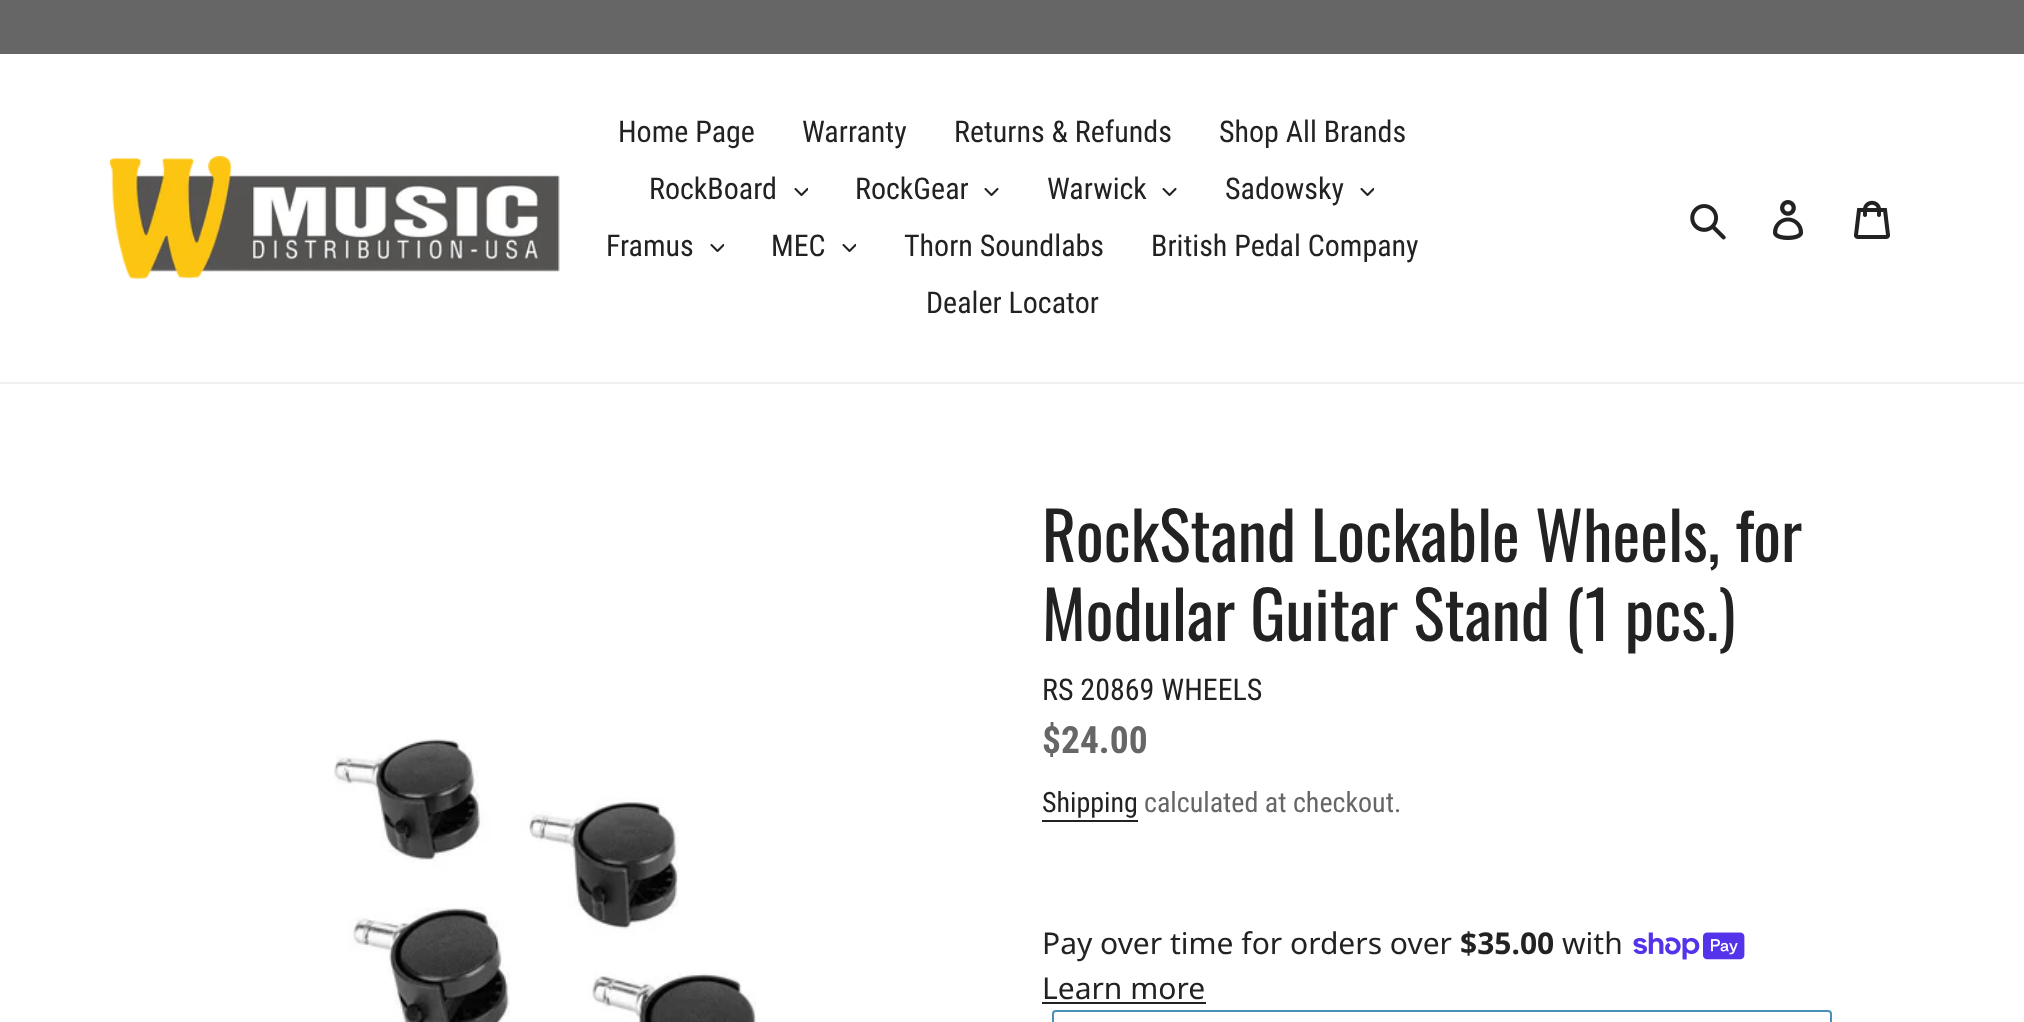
<!DOCTYPE html>
<meta charset="utf-8">
<style>body { margin: 0 } canvas { display: block }</style>
<canvas id="canvas" width="2024" height="1022"></canvas>
<img id="img1" src="img_01.png" hidden>
<img id="img2" src="img_02.png" hidden>
<img id="img3" src="img_03.png" hidden>
<img id="img4" src="img_04.png" hidden>
<img id="img5" src="img_05.png" hidden>
<img id="img6" src="img_06.png" hidden>
<img id="img7" src="img_07.png" hidden>
<img id="img8" src="img_08.png" hidden>
<script>
window.onload = function () {
	const canvas = document.getElementById("canvas");
	const ctx = canvas.getContext("2d");
	ctx.miterLimit = 4;
	ctx.fontKerning = "normal";
	function txt(s, x, y) {
		ctx.fillText(s, x, y);
	}
	function fill(x, y, w, h) {
		ctx.fillRect(x, y, w, h);
	}
	function img(id, x, y, w, h) {
		ctx.drawImage(document.getElementById(id), x, y, w, h);
	}

	ctx.fillStyle = "#FFFFFF";
	fill(0, 0, 2024, 1022);
	ctx.fillStyle = "#666666";
	fill(0, 0, 2024, 54);
	ctx.fillStyle = "#F0F0F0";
	fill(0, 382, 2024, 2);
	img("img1", 110, 156, 450, 123);
	img("img2", 794, 188, 14, 8);
	img("img3", 984, 188, 15, 8);
	img("img3", 1162, 188, 15, 8);
	img("img2", 1360, 188, 14, 8);
	img("img2", 710, 244, 14, 8);
	img("img2", 842, 244, 14, 8);
	img("img4", 1690, 204, 36, 36);
	img("img5", 1773, 200, 31, 40);
	img("img6", 1854, 200, 36, 39);
	img("img7", 334, 739, 423, 283);
	ctx.fillStyle = "#222222";
	fill(1042, 820, 96, 2);
	img("img8", 1633, 932, 112, 28);
	fill(1042, 1002, 164, 2);
	ctx.beginPath();
	ctx.roundRect(1053, 1011, 778, 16, 3);
	ctx.strokeStyle = "#4990B6";
	ctx.lineWidth = 2;
	ctx.stroke();
	ctx.font = "30px Roboto Condensed";
	txt("Home Page", 618, 142);
	txt("Warranty", 802, 142);
	txt("Returns & Refunds", 954, 142);
	txt("Shop All Brands", 1219, 142);
	txt("RockBoard", 649, 199);
	txt("RockGear", 855, 199);
	txt("Warwick", 1047, 199);
	txt("Sadowsky", 1225, 199);
	txt("Framus", 606, 256);
	txt("MEC", 771, 256);
	txt("Thorn Soundlabs", 904, 256);
	txt("British Pedal Company", 1151, 256);
	txt("Dealer Locator", 926, 313);
	ctx.font = "66px Oswald";
	txt("RockStand Lockable Wheels, for", 1042, 562);
	txt("Modular Guitar Stand (1 pcs.)", 1042, 641);
	ctx.font = "30px Roboto Condensed";
	txt("RS 20869 WHEELS", 1042, 700);
	ctx.font = "bold 37.5px Roboto Condensed";
	ctx.fillStyle = "#666666";
	txt("$24.00", 1042, 753);
	ctx.font = "28px Roboto Condensed";
	ctx.fillStyle = "#222222";
	txt("Shipping", 1042, 812);
	ctx.fillStyle = "#666666";
	txt("calculated at checkout.", 1144, 812);
	ctx.font = "30px Noto Sans";
	ctx.fillStyle = "#222222";
	txt("Pay over time for orders over", 1042, 954);
	ctx.font = "bold 30px Noto Sans";
	txt("$35.00", 1460, 954);
	ctx.font = "30px Noto Sans";
	txt("with", 1562, 954);
	txt("Learn more", 1042, 999);
};
</script>
